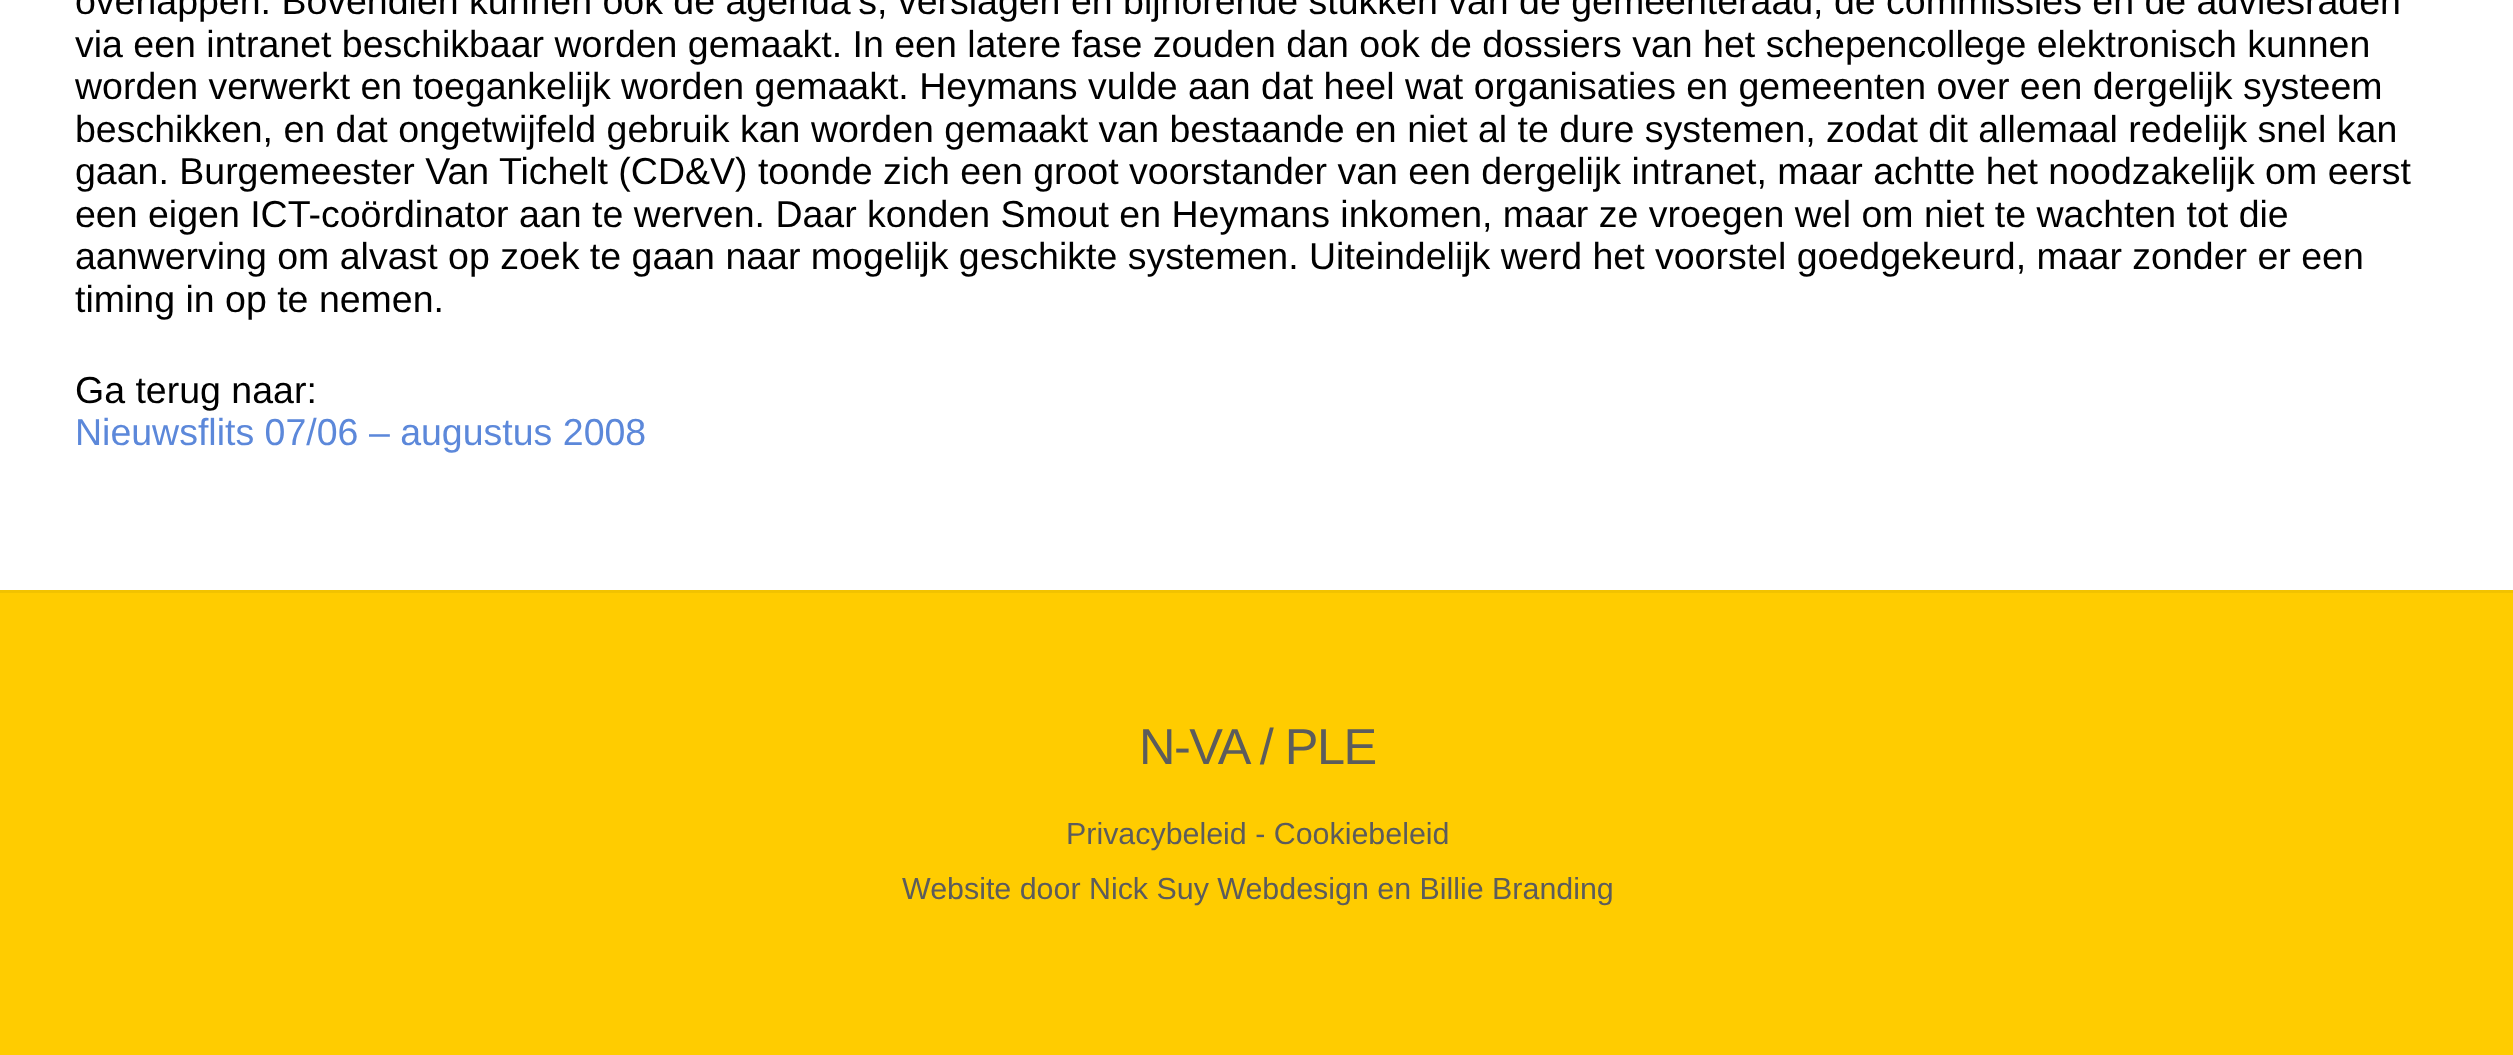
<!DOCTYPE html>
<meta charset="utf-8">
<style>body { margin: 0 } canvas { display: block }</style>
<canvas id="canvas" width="2513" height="1055"></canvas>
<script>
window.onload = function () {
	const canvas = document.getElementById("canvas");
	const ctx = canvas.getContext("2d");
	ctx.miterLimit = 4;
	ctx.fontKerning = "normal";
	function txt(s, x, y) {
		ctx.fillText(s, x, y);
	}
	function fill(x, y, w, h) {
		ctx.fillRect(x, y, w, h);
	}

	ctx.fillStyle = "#FFFFFF";
	fill(0, 0, 2513, 1055);
	ctx.fillStyle = "#FFCC00";
	fill(0, 593, 2513, 462);
	ctx.fillStyle = "#F2C200";
	fill(0, 590, 2513, 3);
	ctx.font = "37.5px Liberation Sans";
	ctx.fillStyle = "#000000";
	txt("overlappen. Bovendien kunnen ook de agenda’s, verslagen en bijhorende stukken van de gemeenteraad, de commissies en de adviesraden", 75, 14);
	txt("via een intranet beschikbaar worden gemaakt. In een latere fase zouden dan ook de dossiers van het schepencollege elektronisch kunnen", 75, 57);
	txt("worden verwerkt en toegankelijk worden gemaakt. Heymans vulde aan dat heel wat organisaties en gemeenten over een dergelijk systeem", 75, 99);
	txt("beschikken, en dat ongetwijfeld gebruik kan worden gemaakt van bestaande en niet al te dure systemen, zodat dit allemaal redelijk snel kan", 75, 142);
	txt("gaan. Burgemeester Van Tichelt (CD&V) toonde zich een groot voorstander van een dergelijk intranet, maar achtte het noodzakelijk om eerst", 75, 184);
	txt("een eigen ICT-coördinator aan te werven. Daar konden Smout en Heymans inkomen, maar ze vroegen wel om niet te wachten tot die", 75, 227);
	txt("aanwerving om alvast op zoek te gaan naar mogelijk geschikte systemen. Uiteindelijk werd het voorstel goedgekeurd, maar zonder er een", 75, 269);
	txt("timing in op te nemen.", 75, 312);
	txt("Ga terug naar:", 75, 403);
	ctx.fillStyle = "#5C88DA";
	txt("Nieuwsflits 07/06 – augustus 2008", 75, 445);
	ctx.letterSpacing = "-1.5px";
	ctx.font = "50.5px Liberation Sans";
	ctx.fillStyle = "#5C5C5C";
	txt("N-VA / PLE", 1139, 764);
	ctx.letterSpacing = "0px";
	ctx.font = "30.4px Liberation Sans";
	txt("Privacybeleid - Cookiebeleid", 1066, 844);
	txt("Website door Nick Suy Webdesign en Billie Branding", 902, 899);
};
</script>
